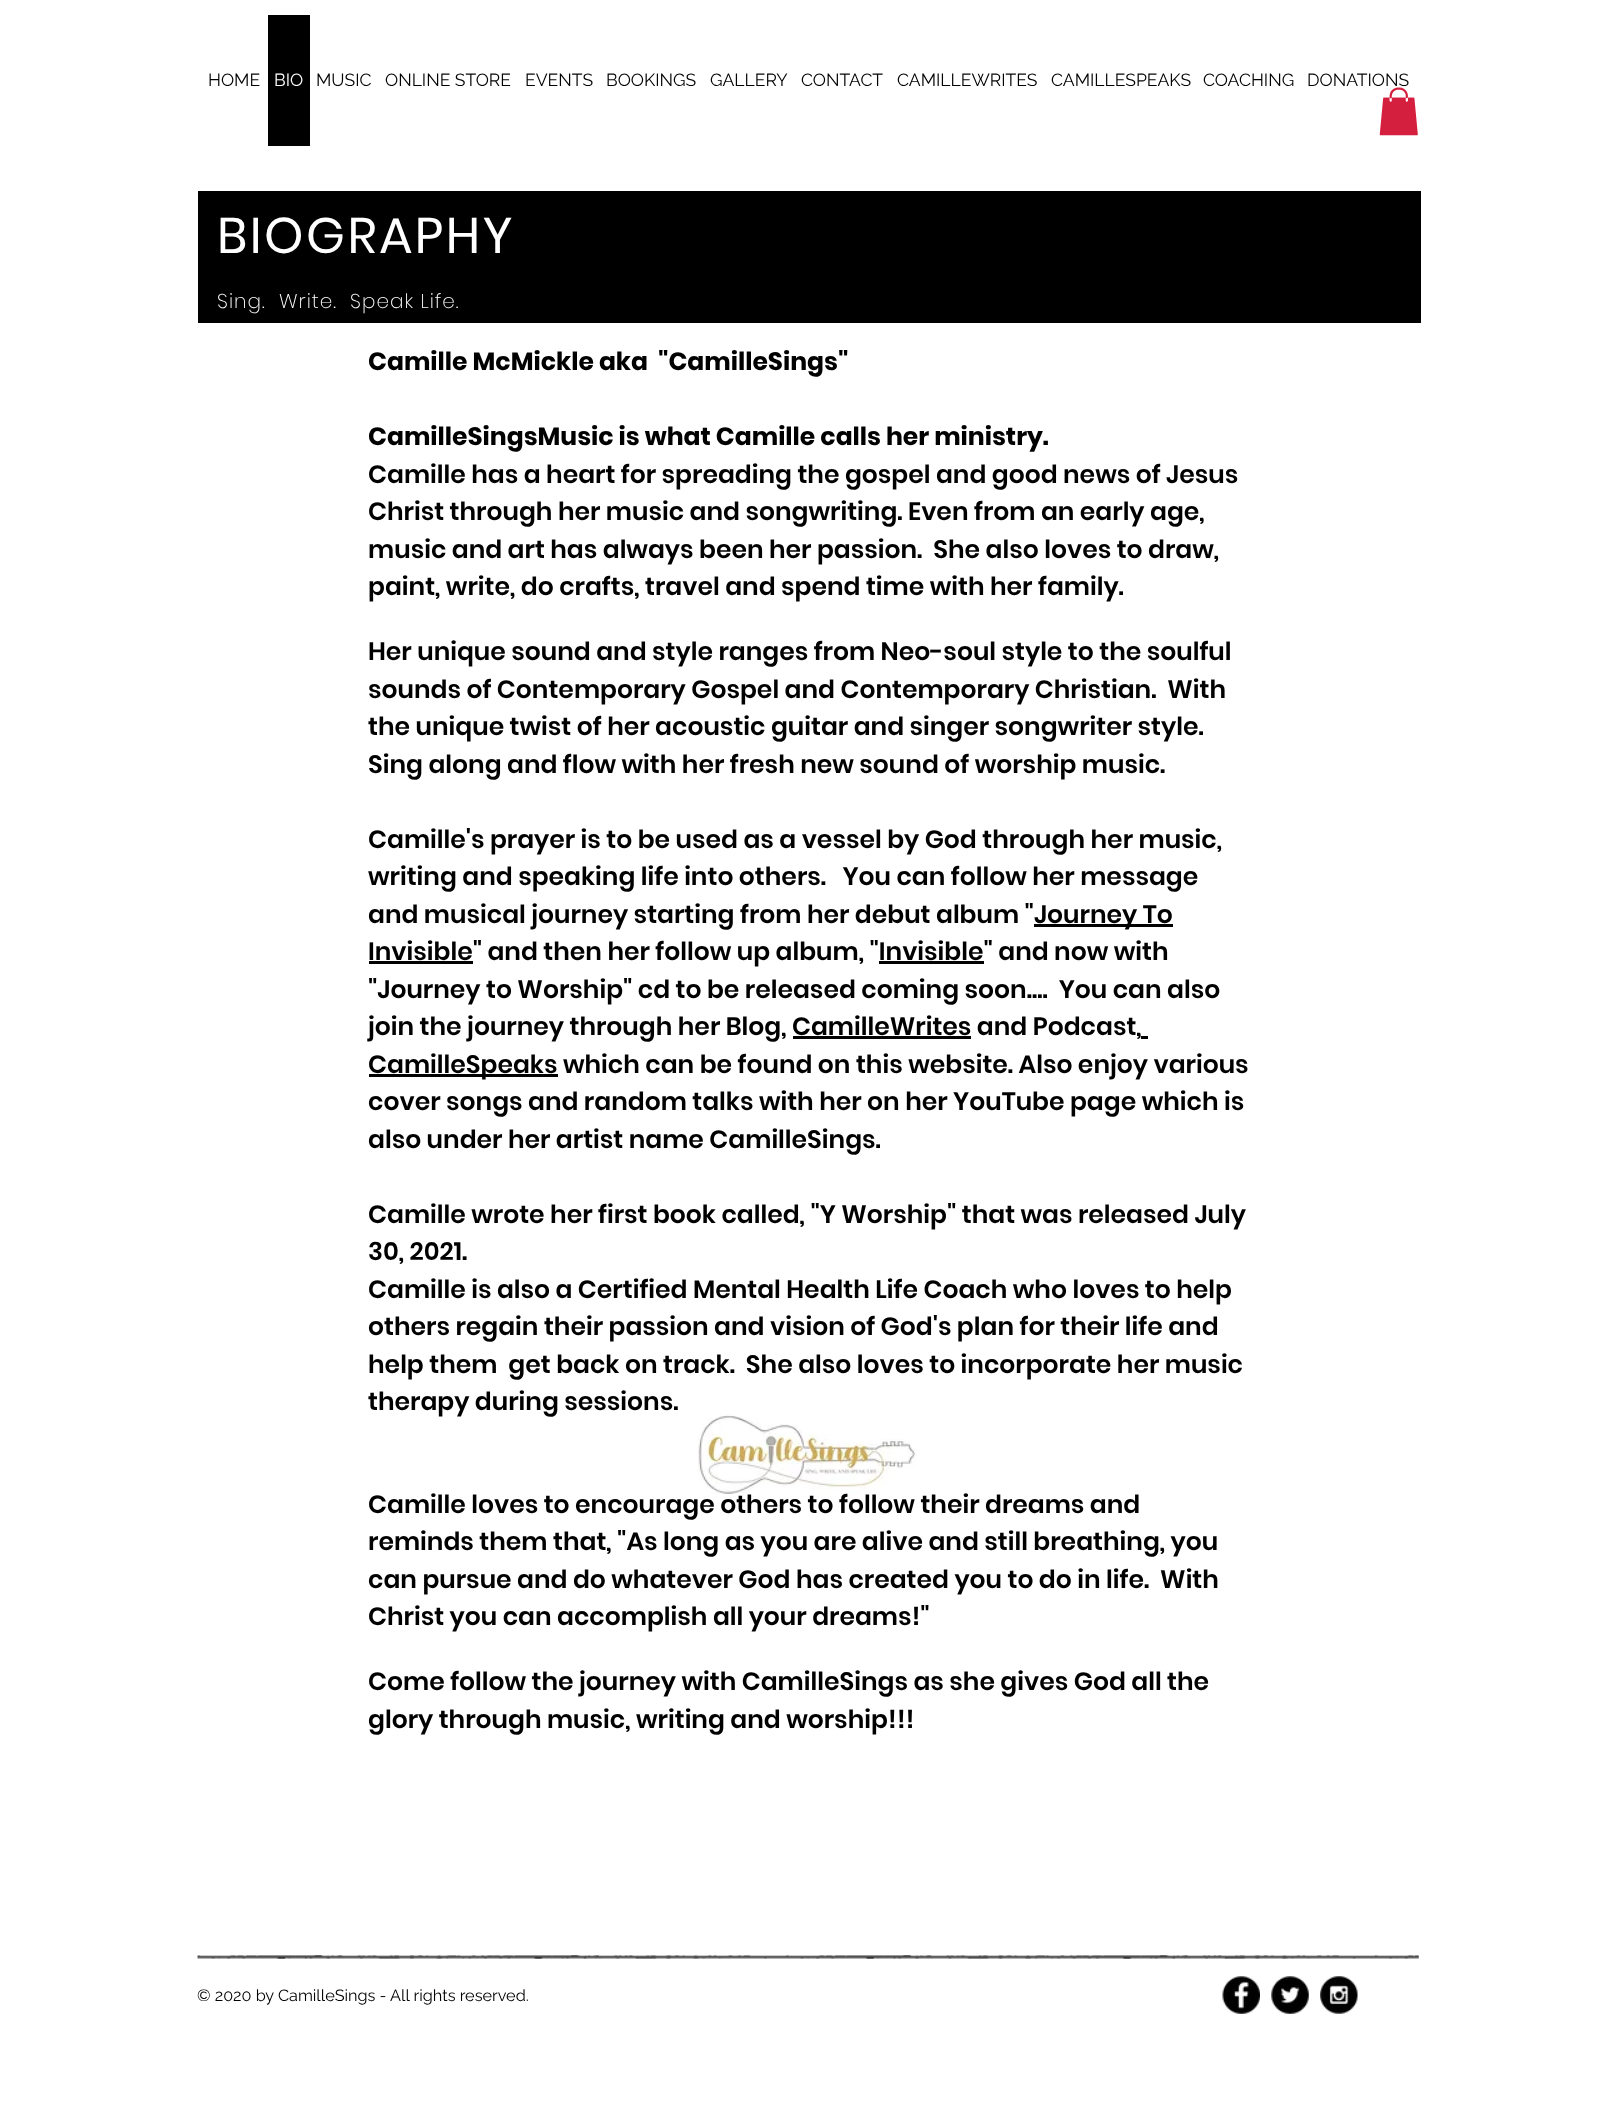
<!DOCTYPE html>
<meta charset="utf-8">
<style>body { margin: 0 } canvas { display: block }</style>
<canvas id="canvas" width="1618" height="2118"></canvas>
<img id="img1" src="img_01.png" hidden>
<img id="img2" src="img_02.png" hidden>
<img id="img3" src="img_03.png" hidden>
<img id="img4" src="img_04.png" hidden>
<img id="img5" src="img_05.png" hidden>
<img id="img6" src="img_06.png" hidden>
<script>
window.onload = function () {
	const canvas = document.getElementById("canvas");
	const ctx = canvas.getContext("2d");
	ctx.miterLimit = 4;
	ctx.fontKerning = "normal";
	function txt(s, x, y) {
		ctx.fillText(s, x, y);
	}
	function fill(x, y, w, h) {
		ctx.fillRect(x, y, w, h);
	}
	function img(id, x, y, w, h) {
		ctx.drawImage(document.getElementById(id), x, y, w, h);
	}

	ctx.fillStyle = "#FFFFFF";
	fill(0, 0, 1618, 2118);
	ctx.fillStyle = "#000000";
	fill(268, 15, 42, 131);
	img("img1", 1379, 87, 39, 49);
	fill(198, 191, 1223, 132);
	fill(1034, 924, 139, 3);
	fill(369, 961, 104, 3);
	fill(879, 961, 105, 3);
	fill(793, 1036, 178, 3);
	fill(1141, 1036, 7, 3);
	fill(369, 1074, 189, 3);
	img("img2", 698, 1414, 219, 80);
	img("img3", 197, 1955, 1222, 4);
	img("img4", 1222, 1976, 38, 38);
	img("img5", 1271, 1976, 38, 38);
	img("img6", 1320, 1976, 38, 38);
	ctx.font = "17.5px Raleway";
	txt("HOME", 208, 86);
	ctx.fillStyle = "#FFFFFF";
	txt("BIO", 274, 86);
	ctx.fillStyle = "#000000";
	txt("MUSIC", 316, 86);
	txt("ONLINE STORE", 385, 86);
	txt("EVENTS", 525, 86);
	txt("BOOKINGS", 606, 86);
	txt("GALLERY", 710, 86);
	txt("CONTACT", 801, 86);
	txt("CAMILLEWRITES", 897, 86);
	txt("CAMILLESPEAKS", 1051, 86);
	txt("COACHING", 1203, 86);
	txt("DONATIONS", 1307, 86);
	ctx.letterSpacing = "2.5px";
	ctx.font = "50px Poppins";
	ctx.fillStyle = "#FFFFFF";
	txt("BIOGRAPHY", 217, 253);
	ctx.letterSpacing = "1px";
	ctx.font = "200 20px Poppins";
	txt("Sing.", 217, 308);
	txt("Write.  Speak Life.", 279, 308);
	ctx.letterSpacing = "0px";
	ctx.font = "bold 25px Poppins";
	ctx.fillStyle = "#000000";
	txt("Camille McMickle aka  \"CamilleSings\"", 368, 370);
	txt("CamilleSingsMusic is what Camille calls her ministry.", 368, 445);
	ctx.font = "600 25px Poppins";
	txt("Camille has a heart for spreading the gospel and good news of Jesus", 368, 483);
	txt("Christ through her music and songwriting. Even from an early age,", 368, 520);
	txt("music and art has always been her passion.  She also loves to draw,", 368, 558);
	txt("paint, write, do crafts, travel and spend time with her family.", 368, 595);
	txt("Her unique sound and style ranges from Neo-soul style to the soulful", 368, 660);
	txt("sounds of Contemporary Gospel and Contemporary Christian.  With", 368, 698);
	txt("the unique twist of her acoustic guitar and singer songwriter style.", 368, 735);
	txt("Sing along and flow with her fresh new sound of worship music.", 368, 773);
	txt("Camille's prayer is to be used as a vessel by God through her music,", 368, 848);
	txt("writing and speaking life into others.   You can follow her message", 368, 885);
	txt("and musical journey starting from her debut album \"", 368, 923);
	txt("Journey To", 1034, 923);
	txt("Invisible\" and then her follow up album, \"Invisible\" and now with", 368, 960);
	txt("\"Journey to Worship\" cd to be released coming soon....  You can also", 368, 998);
	txt("join the journey through her Blog, CamilleWrites and Podcast,", 368, 1035);
	txt("CamilleSpeaks which can be found on this website. Also enjoy various", 368, 1073);
	txt("cover songs and random talks with her on her YouTube page which is", 368, 1110);
	txt("also under her artist name CamilleSings.", 368, 1148);
	txt("Camille wrote her first book called, \"Y Worship\" that was released July", 368, 1223);
	txt("30, 2021.", 368, 1260);
	txt("Camille is also a Certified Mental Health Life Coach who loves to help", 368, 1298);
	txt("others regain their passion and vision of God's plan for their life and", 368, 1335);
	txt("help them  get back on track.  She also loves to incorporate her music", 368, 1373);
	txt("therapy during sessions.", 368, 1410);
	txt("Camille loves to encourage others to follow their dreams and", 368, 1513);
	txt("reminds them that, \"As long as you are alive and still breathing, you", 368, 1550);
	txt("can pursue and do whatever God has created you to do in life.  With", 368, 1588);
	txt("Christ you can accomplish all your dreams!\"", 368, 1625);
	txt("Come follow the journey with CamilleSings as she gives God all the", 368, 1690);
	txt("glory through music, writing and worship!!!", 368, 1728);
	ctx.font = "16.25px Raleway";
	txt("© 2020 by CamilleSings - All rights reserved.", 197, 2001);
};
</script>
